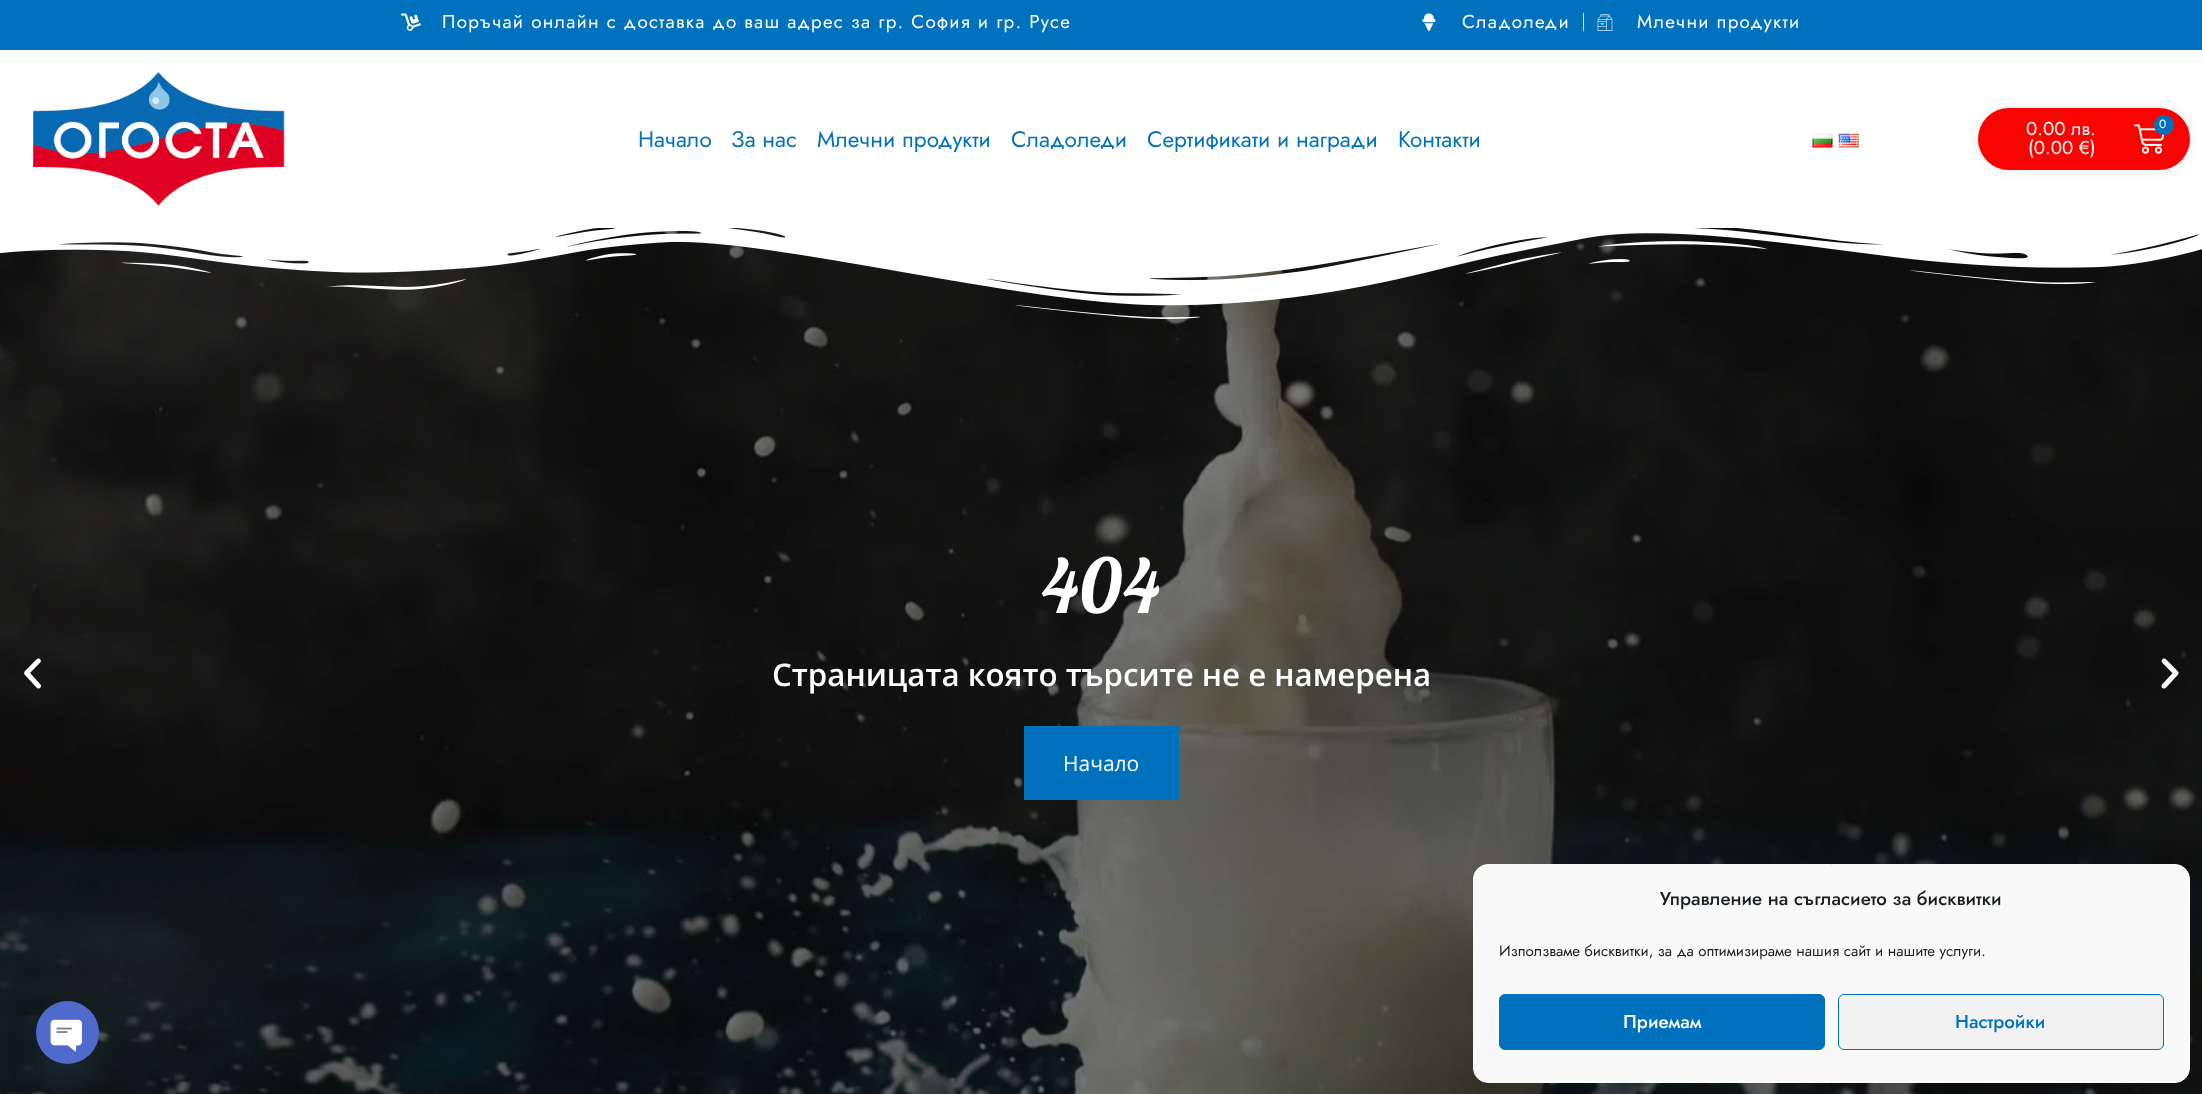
<!DOCTYPE html>
<meta charset="utf-8">
<style>body { margin: 0 } canvas { display: block }</style>
<canvas id="canvas" width="2202" height="1094"></canvas>
<img id="img1" src="img_01.png" hidden>
<img id="img2" src="img_02.png" hidden>
<img id="img3" src="img_03.png" hidden>
<img id="img4" src="img_04.png" hidden>
<img id="img5" src="img_05.png" hidden>
<img id="img6" src="img_06.png" hidden>
<img id="img7" src="img_07.png" hidden>
<img id="img8" src="img_10.png" hidden>
<img id="img9" src="img_08.png" hidden>
<img id="img10" src="img_09.png" hidden>
<img id="img11" src="img_11.png" hidden>
<img id="img12" src="img_12.png" hidden>
<script>
window.onload = function () {
	const canvas = document.getElementById("canvas");
	const ctx = canvas.getContext("2d");
	ctx.miterLimit = 4;
	ctx.fontKerning = "normal";
	function txt(s, x, y) {
		ctx.fillText(s, x, y);
	}
	function fill(x, y, w, h) {
		ctx.fillRect(x, y, w, h);
	}
	function round(x, y, w, h, r) {
		ctx.beginPath();
		ctx.roundRect(x, y, w, h, r);
		ctx.fill();
	}
	function img(id, x, y, w, h) {
		ctx.drawImage(document.getElementById(id), x, y, w, h);
	}

	ctx.fillStyle = "#0071BC";
	fill(0, 0, 2202, 1094);
	img("img1", 401, 13, 20, 18);
	img("img2", 1422, 13, 14, 18);
	ctx.fillStyle = "#DDDDDD";
	fill(1583, 13, 1, 18);
	img("img3", 1597, 14, 16, 17);
	ctx.fillStyle = "#FFFFFF";
	fill(0, 50, 2202, 178);
	img("img4", 33, 72, 252, 134);
	img("img5", 1812, 133, 21, 15);
	img("img6", 1838, 133, 21, 15);
	ctx.fillStyle = "rgba(213, 211, 211, 0.5)";
	ctx.filter = "blur(6px)";
	ctx.beginPath();
	ctx.roundRect(1978, 108, 212, 62, 31);
	ctx.fill();
	ctx.filter = "none";
	ctx.fillStyle = "#FA0303";
	round(1978, 108, 212, 62, 31);
	img("img7", 2134, 124, 31, 30);
	ctx.fillStyle = "#0072BC";
	ctx.beginPath();
	ctx.arc(2164, 125, 10, 0, Math.PI * 2);
	ctx.fill();
	img("img8", 0, 228, 2202, 866);
	img("img9", 0, 228, 2202, 91);
	img("img10", 24, 658, 17, 31);
	ctx.fillStyle = "#0071BC";
	fill(1024, 726, 155, 74);
	img("img11", 2161, 658, 18, 31);
	ctx.fillStyle = "rgba(73, 104, 126, 0.16)";
	ctx.filter = "blur(15px)";
	ctx.beginPath();
	ctx.roundRect(36, 1021, 63, 63, 31.5);
	ctx.fill();
	ctx.filter = "none";
	ctx.fillStyle = "#4F6ACA";
	ctx.beginPath();
	ctx.arc(67.5, 1032.5, 31.5, 0, Math.PI * 2);
	ctx.fill();
	img("img12", 50, 1019, 32, 33);
	ctx.fillStyle = "#F9F9F9";
	ctx.beginPath();
	ctx.roundRect(1473.5, 864.5, 716, 218, 14.5);
	ctx.fill();
	ctx.strokeStyle = "#F9F9F9";
	ctx.stroke();
	ctx.fillStyle = "#0071BC";
	ctx.beginPath();
	ctx.roundRect(1499.5, 994.5, 325, 55, 5.5);
	ctx.fill();
	ctx.strokeStyle = "#0071BC";
	ctx.stroke();
	ctx.fillStyle = "#F1F1F1";
	ctx.beginPath();
	ctx.roundRect(1838.5, 994.5, 325, 55, 5.5);
	ctx.fill();
	ctx.stroke();
	ctx.letterSpacing = "1.25px";
	ctx.font = "18.75px Jost";
	ctx.fillStyle = "#FFFFFF";
	txt("Поръчай онлайн с доставка до ваш адрес за гр. София и гр. Русе", 442, 28);
	txt("Сладоледи", 1462, 28);
	txt("Млечни продукти", 1637, 28);
	ctx.letterSpacing = "0px";
	ctx.font = "22.5px Jost";
	ctx.fillStyle = "#0071BC";
	txt("Начало", 638, 147);
	txt("За нас", 731, 147);
	txt("Млечни продукти", 817, 147);
	txt("Сладоледи", 1011, 147);
	txt("Сертификати и награди", 1147, 147);
	txt("Контакти", 1398, 147);
	ctx.font = "18.75px Jost";
	ctx.fillStyle = "#FFFFFF";
	txt("0.00 лв.", 2026, 135);
	txt("(0.00 €)", 2028, 154);
	ctx.font = "12px Jost";
	txt("0", 2159, 128);
	ctx.letterSpacing = "1.25px";
	ctx.font = "75px Lobster";
	txt("404", 1042, 613);
	ctx.letterSpacing = "0px";
	ctx.font = "600 31.25px Open Sans";
	txt("Страницата която търсите не е намерена", 772, 686);
	ctx.font = "21px Open Sans";
	txt("Начало", 1063, 771);
	ctx.font = "500 18.75px Jost";
	ctx.fillStyle = "#191E23";
	txt("Управление на съгласието за бисквитки", 1660, 905);
	ctx.font = "15px Jost";
	txt("Използваме бисквитки, за да оптимизираме нашия сайт и нашите услуги.", 1499, 956);
	ctx.font = "500 18.75px Jost";
	ctx.fillStyle = "#FFFFFF";
	txt("Приемам", 1623, 1028);
	ctx.fillStyle = "#0071BC";
	txt("Настройки", 1955, 1028);
};
</script>
